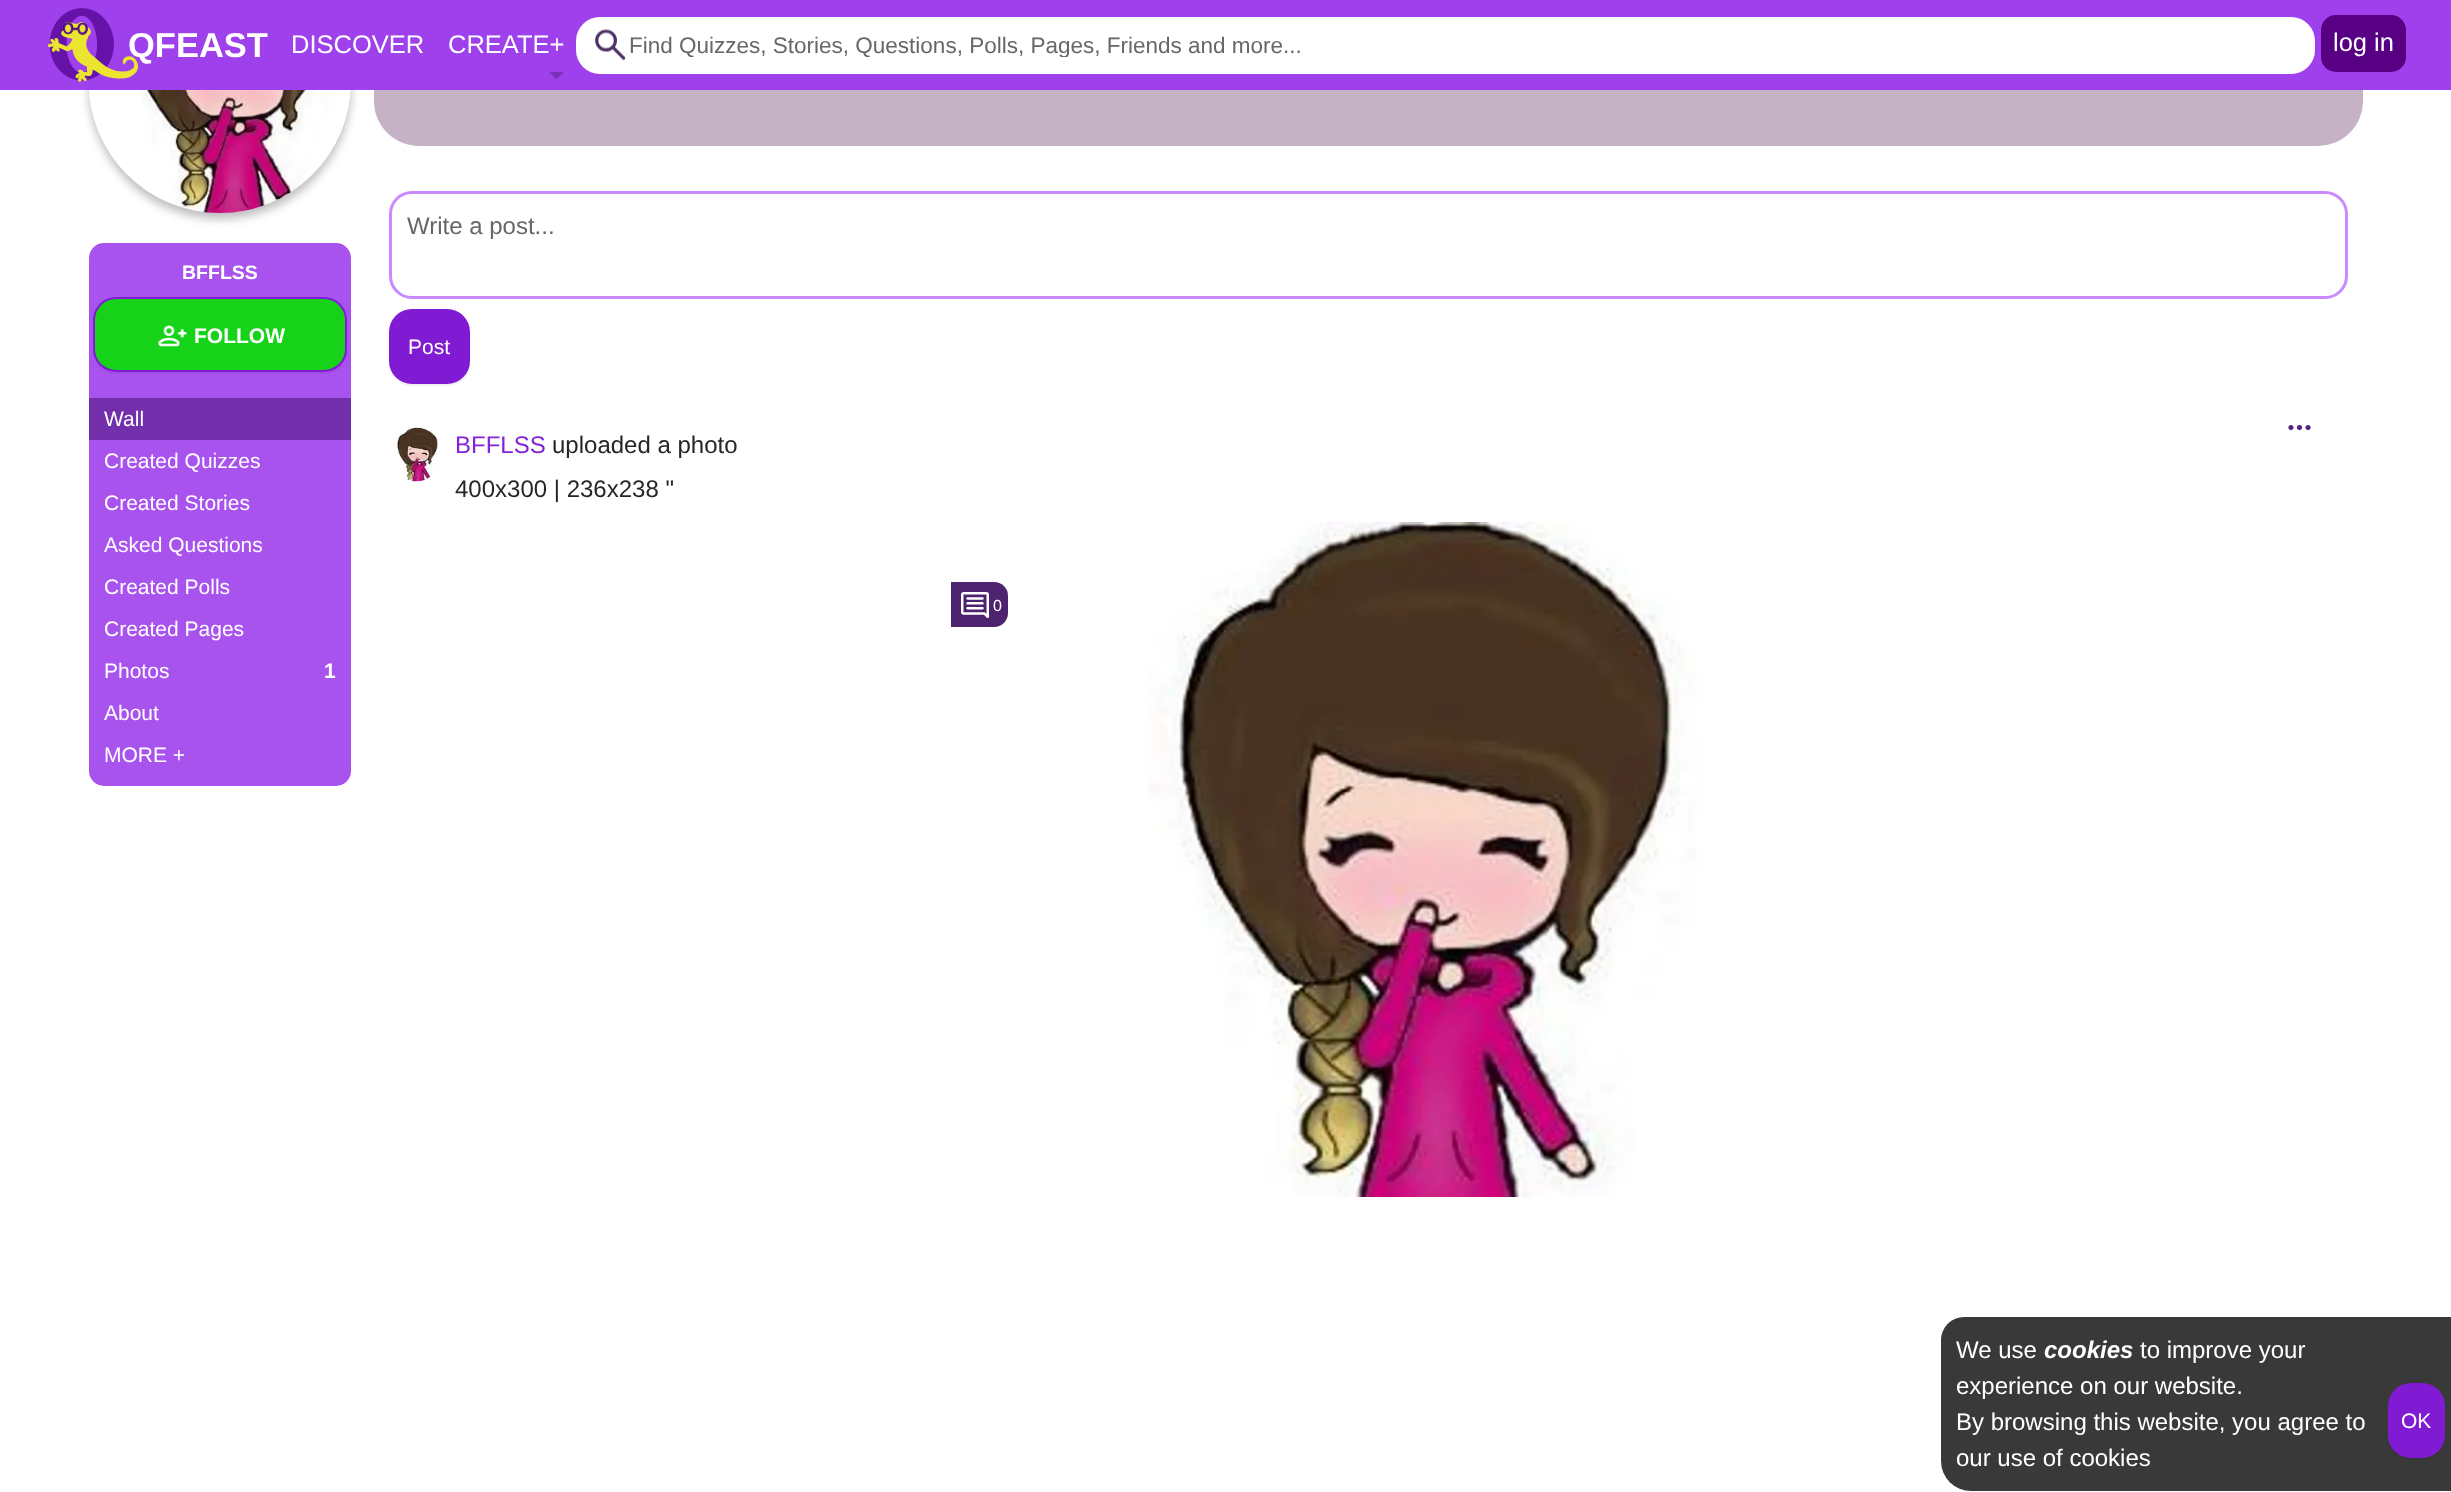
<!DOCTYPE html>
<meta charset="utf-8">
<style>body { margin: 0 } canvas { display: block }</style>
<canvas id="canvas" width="2451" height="1492"></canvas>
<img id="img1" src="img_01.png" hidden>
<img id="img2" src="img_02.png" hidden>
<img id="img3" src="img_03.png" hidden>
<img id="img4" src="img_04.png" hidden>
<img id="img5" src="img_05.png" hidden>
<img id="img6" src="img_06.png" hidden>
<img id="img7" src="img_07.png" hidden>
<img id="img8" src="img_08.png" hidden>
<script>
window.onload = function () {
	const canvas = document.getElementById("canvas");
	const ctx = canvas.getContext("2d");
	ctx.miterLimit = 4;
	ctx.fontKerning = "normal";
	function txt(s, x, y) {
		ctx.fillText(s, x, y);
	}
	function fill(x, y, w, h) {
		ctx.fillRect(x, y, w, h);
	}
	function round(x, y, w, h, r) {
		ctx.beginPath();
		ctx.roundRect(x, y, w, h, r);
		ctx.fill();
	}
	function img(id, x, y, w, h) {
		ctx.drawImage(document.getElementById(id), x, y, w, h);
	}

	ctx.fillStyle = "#FFFFFF";
	fill(0, 0, 2451, 1492);
	ctx.fillStyle = "rgba(89, 89, 89, 0.4)";
	ctx.filter = "blur(5px)";
	ctx.beginPath();
	ctx.roundRect(89, -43, 262, 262, 131);
	ctx.fill();
	ctx.filter = "none";
	ctx.fillStyle = "#C5B2C5";
	round(374, 12, 1989, 134, 45);
	ctx.fillStyle = "#9E40EC";
	fill(0, 0, 2451, 90);
	img("img1", 48, 8, 90, 74);
	ctx.fillStyle = "#7B31B9";
	ctx.beginPath();
	ctx.moveTo(549, 72);
	ctx.lineTo(564, 72);
	ctx.lineTo(556.5, 79.5);
	ctx.closePath();
	ctx.fill();
	ctx.fillStyle = "#FFFFFF";
	round(576, 17, 1739, 57, 24);
	img("img2", 595, 29, 31, 32);
	ctx.fillStyle = "#580083";
	round(2321, 15, 85, 57, 15);
	img("img3", 89, 90, 262, 123);
	ctx.fillStyle = "#A853EE";
	ctx.beginPath();
	ctx.roundRect(89, 243, 262, 144, [15, 15, 0, 0]);
	ctx.fill();
	ctx.fillStyle = "#A04FE2";
	ctx.beginPath();
	ctx.moveTo(93, 350);
	ctx.lineTo(93, 351);
	ctx.bezierCurveTo(93, 364, 103, 374, 116, 374);
	ctx.lineTo(324, 374);
	ctx.bezierCurveTo(337, 374, 347, 364, 347, 351);
	ctx.lineTo(347, 322);
	ctx.lineTo(346, 316);
	ctx.lineTo(346, 350);
	ctx.bezierCurveTo(346, 362, 336, 372, 324, 372);
	ctx.lineTo(116, 372);
	ctx.bezierCurveTo(103, 372, 93, 362, 93, 350);
	ctx.closePath();
	ctx.fill();
	ctx.fillStyle = "#16D31A";
	ctx.beginPath();
	ctx.roundRect(94, 298, 252, 73, 22);
	ctx.fill();
	ctx.strokeStyle = "#801BD3";
	ctx.lineWidth = 2;
	ctx.stroke();
	img("img4", 158, 325, 29, 22);
	ctx.fillStyle = "#A853EE";
	ctx.beginPath();
	ctx.roundRect(89, 387, 262, 399, [0, 0, 15, 15]);
	ctx.fill();
	ctx.fillStyle = "#722EAB";
	fill(89, 398, 262, 42);
	ctx.beginPath();
	ctx.roundRect(390.5, 192.5, 1956, 105, 21.5);
	ctx.strokeStyle = "#CA89FF";
	ctx.lineWidth = 3;
	ctx.stroke();
	ctx.fillStyle = "#F2F2F2";
	ctx.beginPath();
	ctx.moveTo(390, 369);
	ctx.bezierCurveTo(393, 379, 401, 386, 412, 386);
	ctx.lineTo(447, 386);
	ctx.bezierCurveTo(460, 386, 470, 376, 470, 363);
	ctx.lineTo(470, 334);
	ctx.lineTo(469, 328);
	ctx.lineTo(470, 362);
	ctx.bezierCurveTo(470, 374, 459, 384, 447, 384);
	ctx.lineTo(411, 384);
	ctx.bezierCurveTo(401, 384, 393, 378, 390, 369);
	ctx.closePath();
	ctx.fill();
	ctx.fillStyle = "#801BD3";
	ctx.beginPath();
	ctx.roundRect(390, 310, 79, 73, 22);
	ctx.fill();
	ctx.strokeStyle = "#801BD3";
	ctx.lineWidth = 2;
	ctx.stroke();
	img("img5", 394, 427, 45, 55);
	ctx.fillStyle = "#4D236F";
	ctx.beginPath();
	ctx.roundRect(951, 582, 57, 45, [0, 14, 14, 0]);
	ctx.fill();
	img("img6", 961, 592, 28, 26);
	img("img7", 1148, 522, 556, 675);
	img("img8", 2288, 425, 23, 6);
	ctx.fillStyle = "#393939";
	ctx.beginPath();
	ctx.roundRect(1941, 1317, 510, 174, [23, 0, 0, 30]);
	ctx.fill();
	ctx.fillStyle = "#363636";
	ctx.beginPath();
	ctx.moveTo(2388, 1436);
	ctx.bezierCurveTo(2388, 1447, 2395, 1457, 2406, 1460);
	ctx.lineTo(2416, 1460);
	ctx.lineTo(2427, 1460);
	ctx.bezierCurveTo(2438, 1457, 2445, 1447, 2445, 1436);
	ctx.bezierCurveTo(2445, 1448, 2435, 1458, 2422, 1458);
	ctx.lineTo(2410, 1458);
	ctx.bezierCurveTo(2398, 1458, 2388, 1448, 2388, 1436);
	ctx.closePath();
	ctx.fill();
	ctx.fillStyle = "#801BD3";
	ctx.beginPath();
	ctx.roundRect(2389, 1384, 55, 73, 22);
	ctx.fill();
	ctx.stroke();
	ctx.font = "bold 34.5px Liberation Sans";
	ctx.fillStyle = "#FFFFFF";
	txt("QFEAST", 128, 57);
	ctx.font = "25.5px Liberation Sans";
	txt("DISCOVER", 291, 53);
	txt("CREATE+", 448, 53);
	ctx.save();
	ctx.beginPath();
	ctx.rect(629, 32, 1671, 25);
	ctx.clip();
	ctx.font = "22.5px Liberation Sans";
	ctx.fillStyle = "#676767";
	txt("Find Quizzes, Stories, Questions, Polls, Pages, Friends and more...", 629, 53);
	ctx.restore();
	txt("log in", 2333, 51);
	ctx.font = "bold 19.5px Liberation Sans";
	txt("BFFLSS", 182, 279);
	ctx.font = "bold 21px Liberation Sans";
	txt("FOLLOW", 194, 343);
	ctx.font = "21px Liberation Sans";
	txt("Wall", 104, 426);
	txt("Created Quizzes", 104, 468);
	txt("Created Stories", 104, 510);
	txt("Asked Questions", 104, 552);
	txt("Created Polls", 104, 594);
	txt("Created Pages", 104, 636);
	txt("Photos", 104, 678);
	ctx.font = "bold 21px Liberation Sans";
	txt("1", 324, 678);
	ctx.font = "21px Liberation Sans";
	txt("About", 104, 720);
	txt("MORE +", 104, 762);
	ctx.font = "24px Liberation Sans";
	ctx.fillStyle = "#676767";
	txt("Write a post...", 407, 234);
	ctx.font = "21px Liberation Sans";
	ctx.fillStyle = "#FFFFFF";
	txt("Post", 408, 354);
	ctx.font = "24px Liberation Sans";
	ctx.fillStyle = "#8522D7";
	txt("BFFLSS", 455, 453);
	ctx.fillStyle = "#262626";
	txt("uploaded a photo", 552, 453);
	txt("400x300 | 236x238 \"", 455, 497);
	ctx.font = "16px Liberation Sans";
	ctx.fillStyle = "#FFFFFF";
	txt("0", 993, 611);
	ctx.font = "24px Liberation Sans";
	txt("We use", 1956, 1358);
	ctx.font = "italic bold 24px Liberation Sans";
	txt("cookies", 2044, 1358);
	ctx.font = "24px Liberation Sans";
	txt("to improve your", 2140, 1358);
	txt("experience on our website.", 1956, 1394);
	txt("By browsing this website, you agree to", 1956, 1430);
	txt("our use of cookies", 1956, 1466);
	ctx.font = "21px Liberation Sans";
	txt("OK", 2401, 1428);
};
</script>
